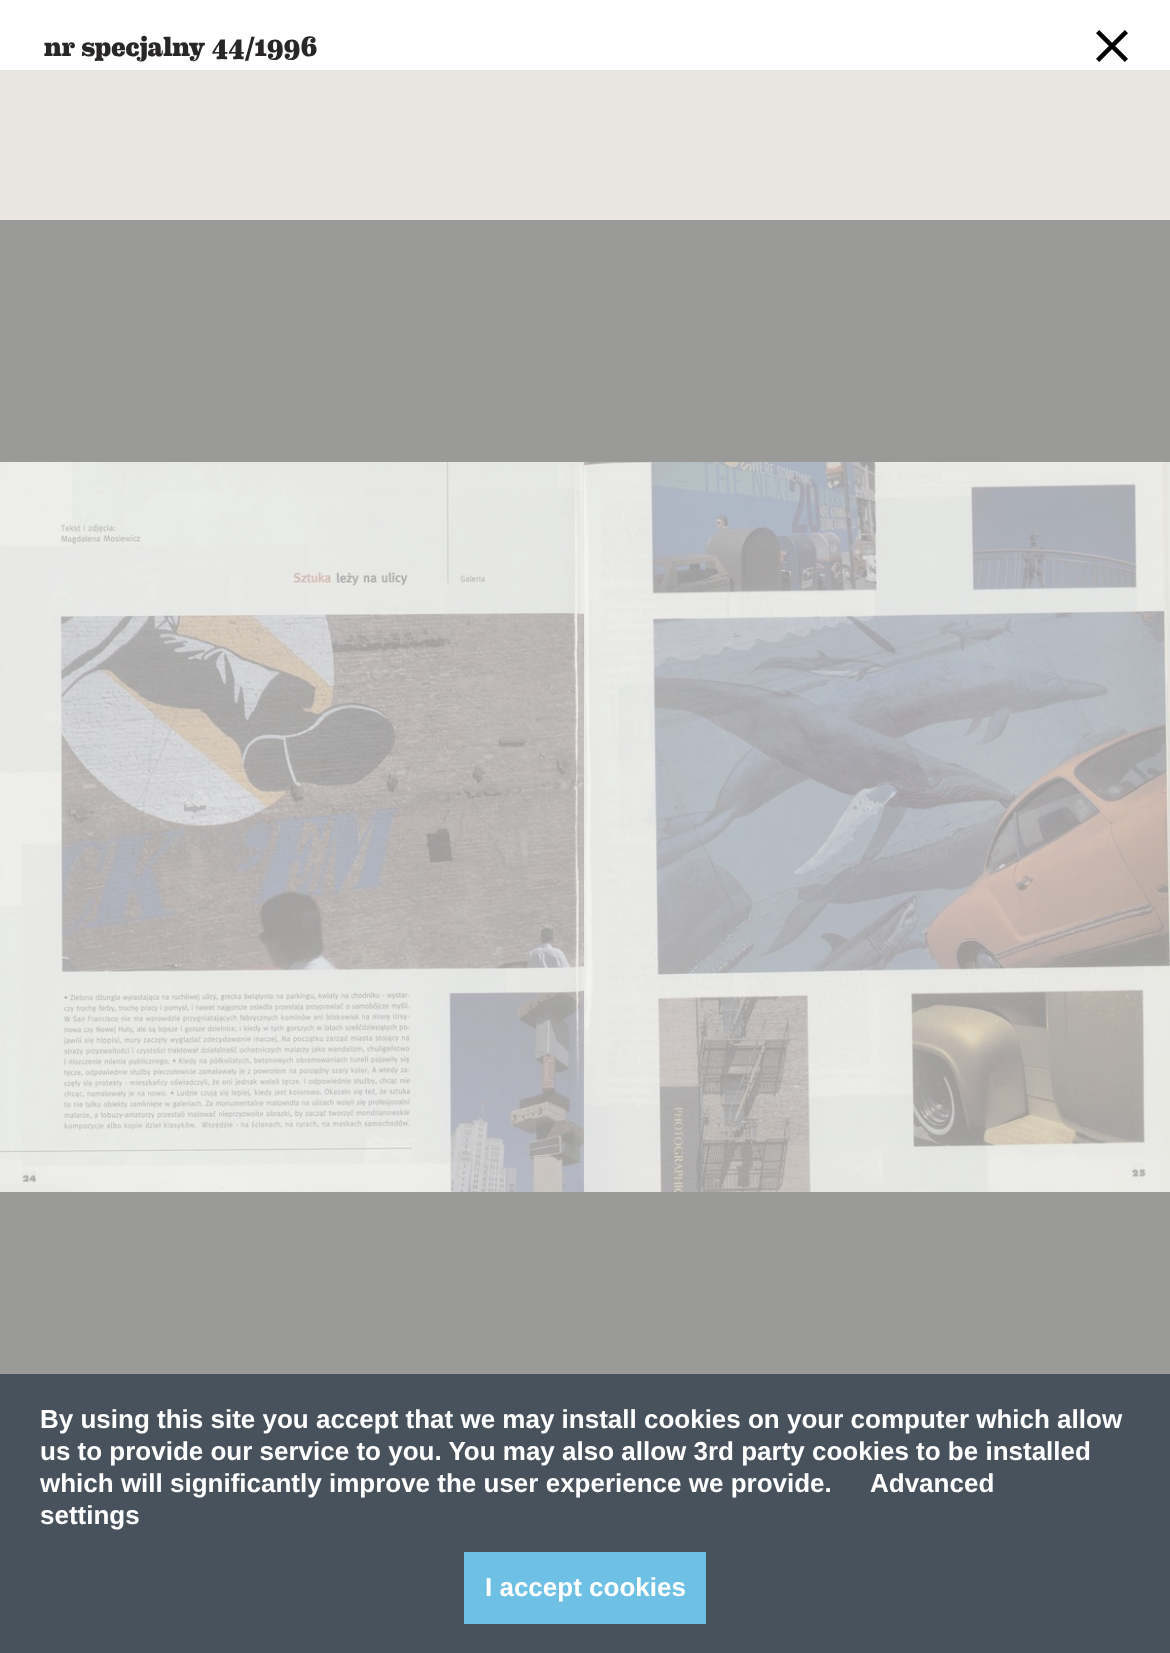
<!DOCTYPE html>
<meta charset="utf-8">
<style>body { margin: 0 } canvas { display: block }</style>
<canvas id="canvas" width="1170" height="1653"></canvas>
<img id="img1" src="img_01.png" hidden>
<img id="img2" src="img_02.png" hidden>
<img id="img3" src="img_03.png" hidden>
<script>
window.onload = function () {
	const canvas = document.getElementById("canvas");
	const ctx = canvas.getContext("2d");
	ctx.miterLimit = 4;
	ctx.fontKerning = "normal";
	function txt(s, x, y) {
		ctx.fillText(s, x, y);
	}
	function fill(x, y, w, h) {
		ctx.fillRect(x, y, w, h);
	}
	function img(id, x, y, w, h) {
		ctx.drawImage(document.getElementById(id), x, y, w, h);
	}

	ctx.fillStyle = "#9A9A98";
	fill(0, 0, 1170, 1653);
	ctx.fillStyle = "#FFFFFF";
	fill(0, 0, 1170, 70);
	img("img1", 1096, 30, 32, 32);
	ctx.fillStyle = "#E9E5E0";
	fill(0, 70, 1170, 150);
	img("img2", 0, 462, 584, 730);
	img("img3", 584, 462, 586, 730);
	ctx.fillStyle = "#47525D";
	fill(0, 1374, 1170, 279);
	ctx.fillStyle = "#6EC1E4";
	fill(464, 1552, 242, 72);
	ctx.font = "800 28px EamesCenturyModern";
	ctx.fillStyle = "#292626";
	txt("nr specjalny 44/1996", 44, 56);
	ctx.font = "bold 26px Liberation Sans";
	ctx.fillStyle = "#FFFFFF";
	txt("By using this site you accept that we may install cookies on your computer which allow", 40, 1428);
	txt("us to provide our service to you. You may also allow 3rd party cookies to be installed", 40, 1460);
	txt("which will significantly improve the user experience we provide.", 40, 1492);
	txt("Advanced", 870, 1492);
	txt("settings", 40, 1524);
	txt("I accept cookies", 485, 1596);
};
</script>
